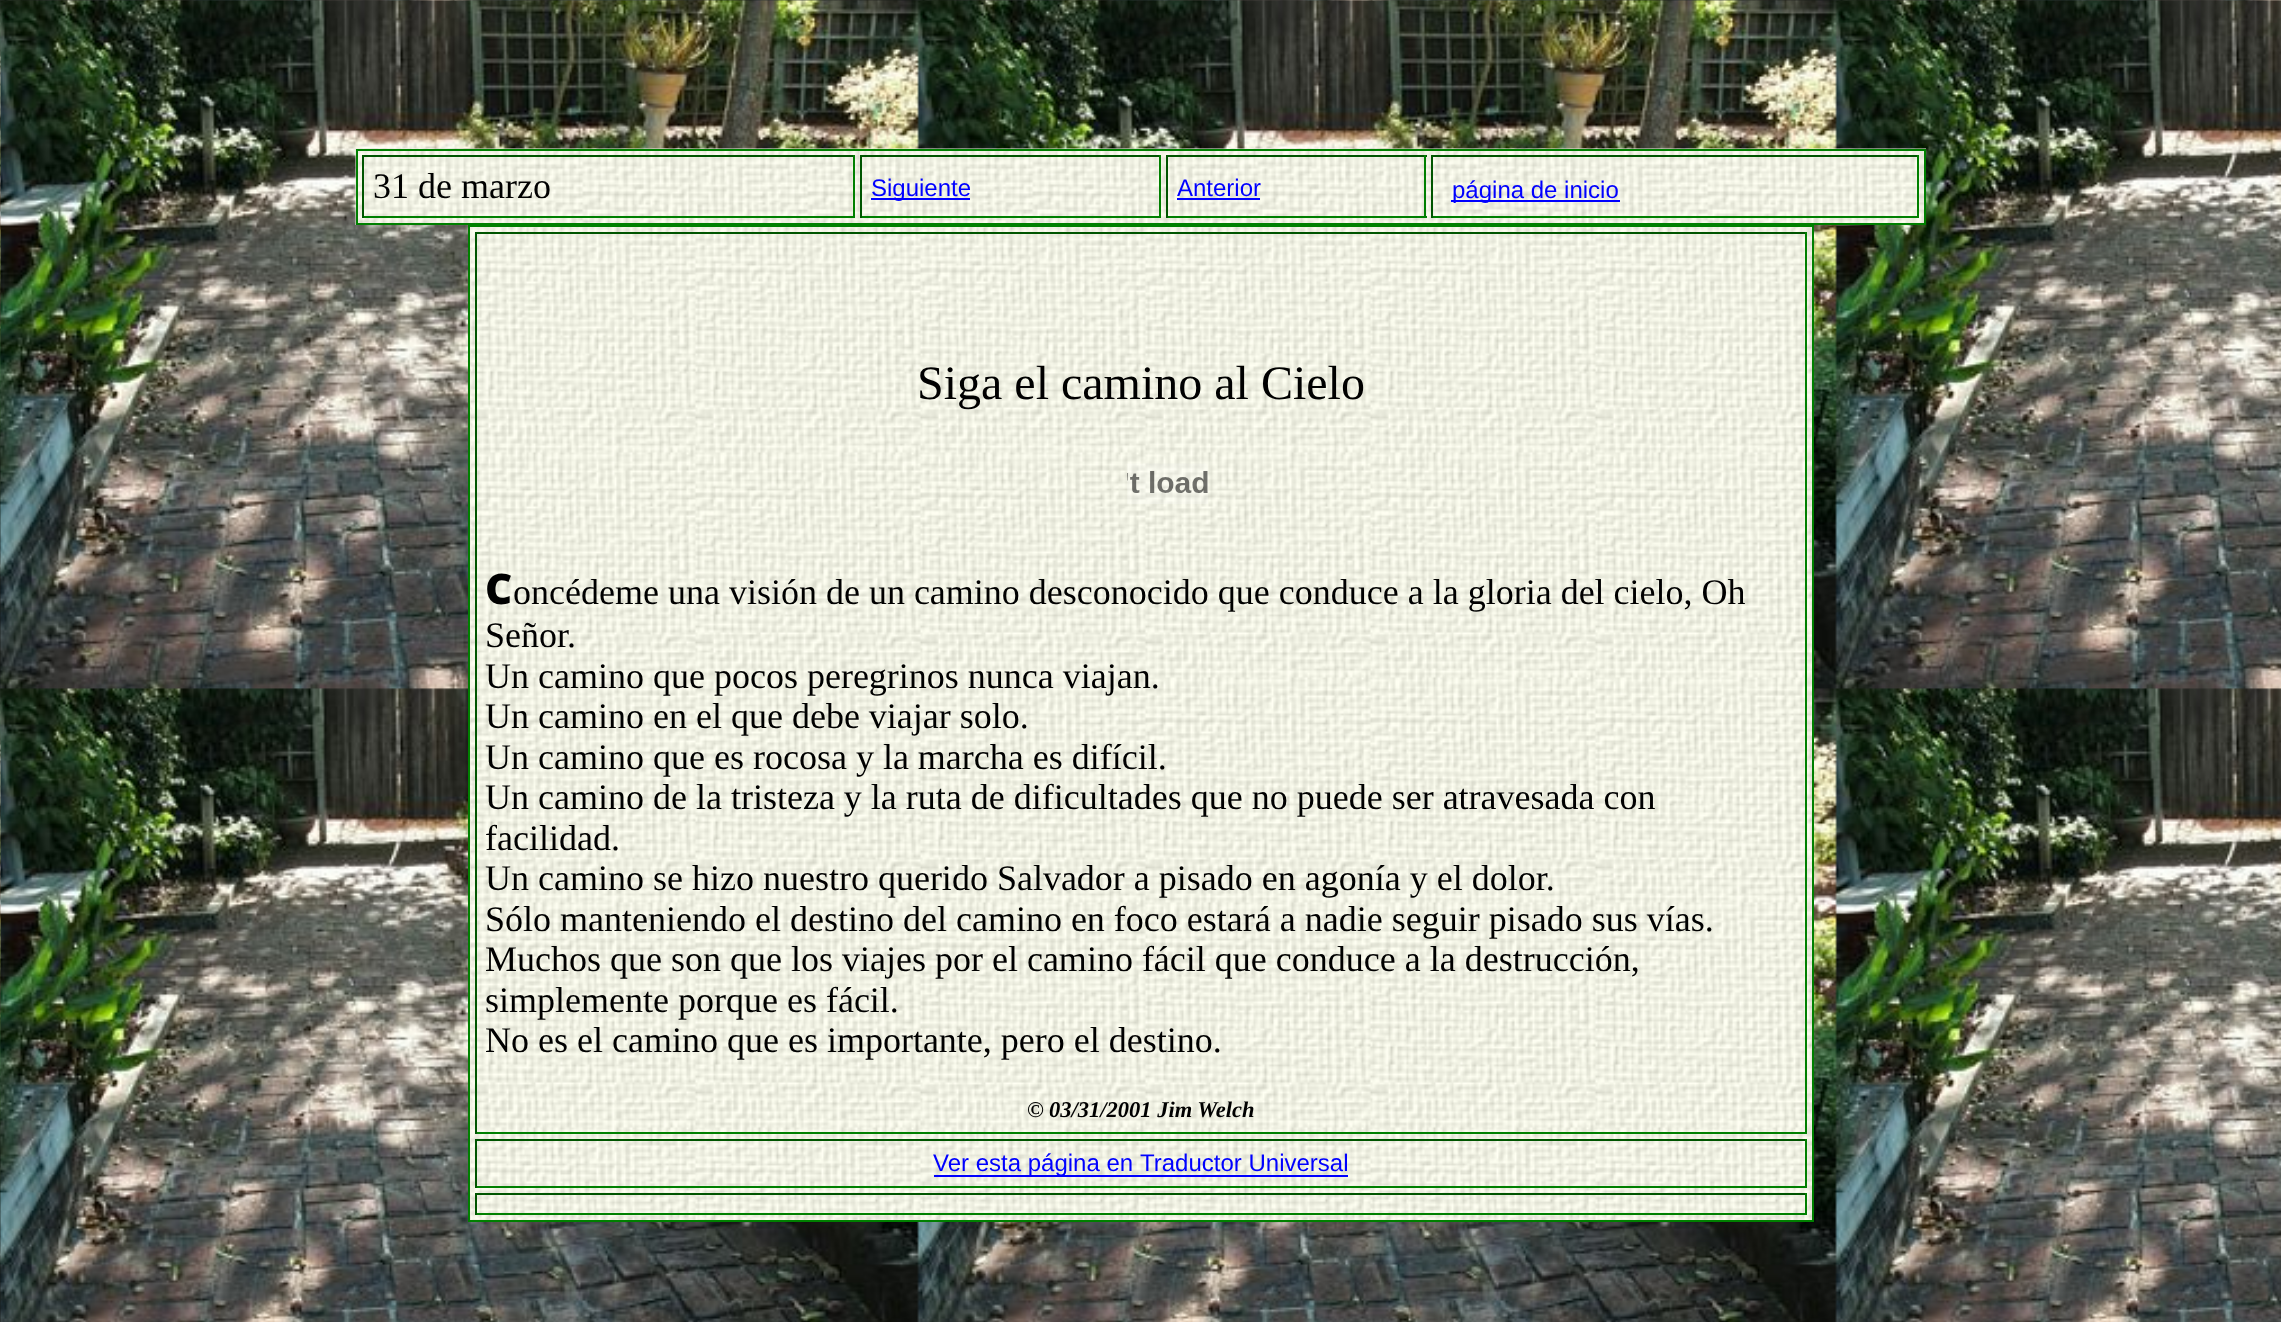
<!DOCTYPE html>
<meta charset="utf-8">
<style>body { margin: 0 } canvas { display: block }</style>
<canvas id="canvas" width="2281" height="1322"></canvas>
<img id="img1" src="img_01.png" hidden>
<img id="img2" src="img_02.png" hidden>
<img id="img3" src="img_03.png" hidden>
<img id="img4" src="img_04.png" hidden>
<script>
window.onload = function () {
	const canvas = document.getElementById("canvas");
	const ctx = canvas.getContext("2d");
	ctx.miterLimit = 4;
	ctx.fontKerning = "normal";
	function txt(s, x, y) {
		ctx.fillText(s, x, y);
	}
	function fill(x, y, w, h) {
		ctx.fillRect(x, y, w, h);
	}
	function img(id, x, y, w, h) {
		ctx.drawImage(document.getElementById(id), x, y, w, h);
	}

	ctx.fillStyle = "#FFFFFF";
	fill(0, 0, 2281, 1322);
	img("img1", 0, 0, 2281, 1322);
	img("img2", 355, 148, 1571, 77);
	ctx.strokeStyle = "#008000";
	ctx.lineWidth = 2;
	ctx.strokeRect(357, 150, 1568, 74);
	ctx.fillStyle = "#005500";
	fill(362, 155, 493, 2);
	ctx.fillStyle = "#008000";
	fill(853, 155, 2, 63);
	fill(362, 216, 493, 2);
	ctx.fillStyle = "#005500";
	fill(362, 155, 2, 63);
	fill(860, 155, 301, 2);
	ctx.fillStyle = "#008000";
	fill(1159, 155, 2, 63);
	fill(860, 216, 301, 2);
	ctx.fillStyle = "#005500";
	fill(860, 155, 2, 63);
	ctx.fillStyle = "#0000FF";
	fill(871, 198, 99, 2);
	ctx.fillStyle = "#005500";
	fill(1166, 155, 261, 2);
	ctx.fillStyle = "#008000";
	fill(1424, 155, 2, 63);
	fill(1166, 216, 261, 2);
	ctx.fillStyle = "#005500";
	fill(1166, 155, 2, 63);
	ctx.fillStyle = "#0000FF";
	fill(1177, 198, 83, 2);
	ctx.fillStyle = "#005500";
	fill(1431, 155, 488, 2);
	ctx.fillStyle = "#008000";
	fill(1917, 155, 2, 63);
	fill(1431, 216, 488, 2);
	ctx.fillStyle = "#005500";
	fill(1431, 155, 2, 63);
	ctx.fillStyle = "#0000FF";
	fill(1451, 200, 169, 2);
	img("img3", 470, 227, 1342, 993);
	ctx.strokeRect(469, 226, 1344, 995);
	ctx.fillStyle = "#005500";
	fill(475, 232, 1332, 2);
	ctx.fillStyle = "#008000";
	fill(1805, 232, 2, 902);
	fill(475, 1132, 1332, 2);
	ctx.fillStyle = "#005500";
	fill(475, 232, 2, 902);
	img("img4", 1127, 463, 81, 41);
	fill(475, 1139, 1332, 2);
	ctx.fillStyle = "#008000";
	fill(1805, 1139, 2, 49);
	fill(475, 1186, 1332, 2);
	ctx.fillStyle = "#005500";
	fill(475, 1139, 2, 49);
	ctx.fillStyle = "#0000FF";
	fill(934, 1175, 414, 2);
	ctx.fillStyle = "#005500";
	fill(475, 1193, 1332, 2);
	ctx.fillStyle = "#008000";
	fill(1805, 1193, 2, 22);
	fill(475, 1213, 1332, 2);
	ctx.fillStyle = "#005500";
	fill(475, 1193, 2, 22);
	ctx.font = "36px Liberation Serif";
	ctx.fillStyle = "#000000";
	txt("31 de marzo", 373, 198);
	ctx.font = "24px Liberation Sans";
	ctx.fillStyle = "#0000FF";
	txt("Siguiente", 871, 196);
	txt("Anterior", 1177, 196);
	txt("página de inicio", 1452, 198);
	ctx.font = "48px Liberation Serif";
	ctx.fillStyle = "#000000";
	txt("Siga el camino al Cielo", 917, 399);
	ctx.font = "900 42px Noto Sans";
	txt("C", 485, 604);
	ctx.font = "36px Liberation Serif";
	txt("oncédeme una visión de un camino desconocido que conduce a la gloria del cielo, Oh", 513, 604);
	txt("Señor.", 485, 647);
	txt("Un camino que pocos peregrinos nunca viajan.", 485, 688);
	txt("Un camino en el que debe viajar solo.", 485, 728);
	txt("Un camino que es rocosa y la marcha es difícil.", 485, 769);
	txt("Un camino de la tristeza y la ruta de dificultades que no puede ser atravesada con", 485, 809);
	txt("facilidad.", 485, 850);
	txt("Un camino se hizo nuestro querido Salvador a pisado en agonía y el dolor.", 485, 890);
	txt("Sólo manteniendo el destino del camino en foco estará a nadie seguir pisado sus vías.", 485, 931);
	txt("Muchos que son que los viajes por el camino fácil que conduce a la destrucción,", 485, 971);
	txt("simplemente porque es fácil.", 485, 1012);
	txt("No es el camino que es importante, pero el destino.", 485, 1052);
	ctx.font = "bold 22.5px Liberation Serif";
	txt("©", 1027, 1117);
	ctx.font = "italic bold 22.5px Liberation Serif";
	txt("03/31/2001 Jim Welch", 1049, 1117);
	ctx.font = "24px Liberation Sans";
	ctx.fillStyle = "#0000FF";
	txt("Ver esta página en", 933, 1171);
	txt("Traductor Universal", 1140, 1171);
};
</script>
